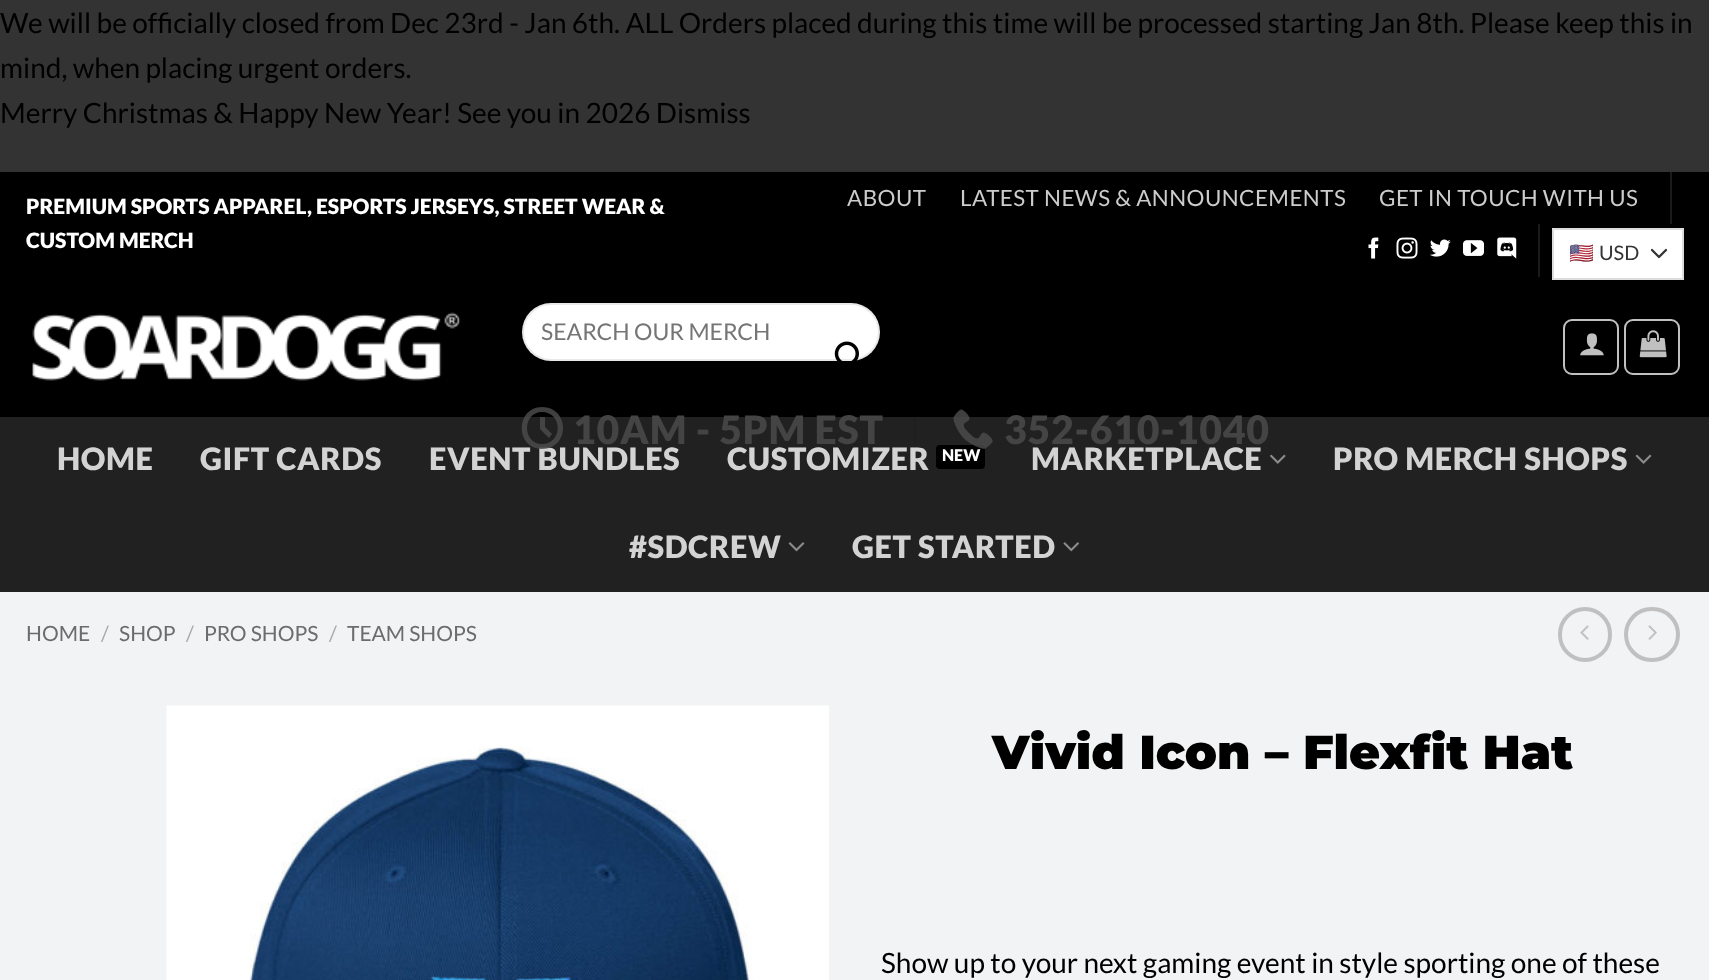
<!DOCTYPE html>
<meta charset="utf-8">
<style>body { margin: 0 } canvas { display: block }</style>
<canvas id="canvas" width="1709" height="980"></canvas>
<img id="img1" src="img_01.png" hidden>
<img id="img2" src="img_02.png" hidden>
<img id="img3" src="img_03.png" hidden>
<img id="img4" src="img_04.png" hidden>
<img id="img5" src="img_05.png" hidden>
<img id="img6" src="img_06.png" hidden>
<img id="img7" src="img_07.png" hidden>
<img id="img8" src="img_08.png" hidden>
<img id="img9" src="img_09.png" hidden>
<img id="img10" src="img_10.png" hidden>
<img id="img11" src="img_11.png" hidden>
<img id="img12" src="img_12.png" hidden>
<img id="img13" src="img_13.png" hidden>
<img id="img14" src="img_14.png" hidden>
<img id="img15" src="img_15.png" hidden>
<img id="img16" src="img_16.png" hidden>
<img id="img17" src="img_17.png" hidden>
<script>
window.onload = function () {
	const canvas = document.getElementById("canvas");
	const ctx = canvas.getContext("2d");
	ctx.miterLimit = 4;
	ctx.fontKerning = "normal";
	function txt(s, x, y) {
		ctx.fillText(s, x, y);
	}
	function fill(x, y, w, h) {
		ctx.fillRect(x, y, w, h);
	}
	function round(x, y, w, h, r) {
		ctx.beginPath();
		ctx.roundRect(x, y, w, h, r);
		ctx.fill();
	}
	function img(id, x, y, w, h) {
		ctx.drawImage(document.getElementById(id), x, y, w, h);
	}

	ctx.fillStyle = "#333333";
	fill(0, 0, 1709, 980);
	ctx.fillStyle = "#F2F3F5";
	fill(0, 592, 1709, 388);
	ctx.fillStyle = "#000000";
	fill(0, 172, 1709, 245);
	ctx.fillStyle = "#1A1A1A";
	fill(1670, 172, 2, 52);
	img("img1", 1368, 237, 11, 22);
	img("img2", 1396, 237, 22, 22);
	img("img3", 1430, 239, 21, 18);
	img("img4", 1463, 240, 21, 16);
	img("img5", 1497, 237, 20, 22);
	fill(1538, 224, 2, 53);
	ctx.fillStyle = "#FFFFFF";
	fill(1554, 230, 128, 48);
	ctx.beginPath();
	ctx.moveTo(1652, 250);
	ctx.lineTo(1659, 257);
	ctx.lineTo(1666, 250);
	ctx.strokeStyle = "#333333";
	ctx.lineWidth = 2.3;
	ctx.lineCap = "round";
	ctx.lineJoin = "round";
	ctx.stroke();
	ctx.strokeStyle = "#DDDDDD";
	ctx.lineWidth = 2;
	ctx.lineJoin = "miter";
	ctx.strokeRect(1553, 229, 130, 50);
	img("img6", 32, 312, 429, 69);
	round(522, 303, 358, 58, 29);
	ctx.beginPath();
	ctx.roundRect(523, 304, 356, 56, 28);
	ctx.strokeStyle = "rgba(0, 0, 0, 0.09)";
	ctx.stroke();
	img("img7", 834, 341, 25, 20);
	ctx.fillStyle = "#212121";
	fill(0, 417, 1709, 175);
	ctx.fillStyle = "#1E1E1E";
	fill(914, 418, 2, 27);
	ctx.fillStyle = "#000000";
	round(936, 445, 49, 24, 4);
	img("img8", 953, 409, 40, 40);
	ctx.beginPath();
	ctx.roundRect(1564, 320, 54, 54, 8);
	ctx.strokeStyle = "#C0C0C0";
	ctx.stroke();
	img("img9", 1580, 333, 24, 23);
	ctx.beginPath();
	ctx.roundRect(1625, 320, 54, 54, 8);
	ctx.stroke();
	img("img10", 1639, 330, 28, 28);
	img("img11", 1270, 454, 16, 10);
	img("img12", 1635, 454, 17, 10);
	img("img13", 788, 542, 17, 10);
	img("img14", 1063, 542, 16, 10);
	ctx.beginPath();
	ctx.roundRect(1560, 609, 50, 51, 25);
	ctx.lineWidth = 4;
	ctx.stroke();
	img("img15", 1580, 625, 9, 15);
	ctx.beginPath();
	ctx.roundRect(1626, 609, 52, 51, 25.5);
	ctx.stroke();
	img("img16", 1648, 625, 9, 15);
	img("img17", 166, 705, 663, 275);
	ctx.font = "28px Lato";
	txt("We will be officially closed from Dec 23rd - Jan 6th. ALL Orders placed during this time will be processed starting Jan 8th. Please keep this in", 0, 33);
	txt("mind, when placing urgent orders.", 0, 78);
	txt("Merry Christmas & Happy New Year! See you in 2026 Dismiss", 0, 123);
	ctx.font = "900 21px Lato";
	ctx.fillStyle = "#FFFFFF";
	txt("PREMIUM SPORTS APPAREL, ESPORTS JERSEYS, STREET WEAR &", 26, 214);
	txt("CUSTOM MERCH", 26, 248);
	ctx.letterSpacing = "0.45px";
	ctx.font = "22.4px Lato";
	ctx.fillStyle = "#CCCCCC";
	txt("ABOUT", 847, 206);
	txt("LATEST NEWS & ANNOUNCEMENTS", 960, 206);
	txt("GET IN TOUCH WITH US", 1379, 206);
	ctx.save();
	ctx.beginPath();
	ctx.rect(1570, 236, 84, 34);
	ctx.clip();
	ctx.letterSpacing = "0px";
	ctx.font = "20px Noto Color Emoji";
	ctx.fillStyle = "#333333";
	txt("🇺🇸", 1569, 260);
	ctx.restore();
	ctx.letterSpacing = "0px";
	ctx.font = "20px Lato";
	ctx.fillStyle = "#333333";
	txt("USD", 1599, 260);
	ctx.font = "23px Lato";
	ctx.fillStyle = "#757575";
	txt("SEARCH OUR MERCH", 541, 340);
	ctx.letterSpacing = "0.75px";
	ctx.font = "900 39.25px Lato";
	ctx.fillStyle = "#444444";
	txt("10AM - 5PM EST", 573, 444);
	txt("352-610-1040", 1004, 444);
	ctx.letterSpacing = "0.6px";
	ctx.font = "900 30.75px Lato";
	ctx.fillStyle = "#D3D3D3";
	txt("HOME", 57, 470);
	txt("GIFT CARDS", 200, 470);
	txt("EVENT BUNDLES", 429, 470);
	ctx.fillStyle = "rgba(74, 74, 74, 0.85)";
	ctx.beginPath();
	ctx.moveTo(549, 438);
	ctx.lineTo(540, 429);
	ctx.lineTo(540, 417);
	ctx.lineTo(545, 417);
	ctx.lineTo(545, 427);
	ctx.lineTo(552, 434);
	ctx.closePath();
	ctx.moveTo(542, 407);
	ctx.bezierCurveTo(515, 407, 515, 449, 542, 449);
	ctx.bezierCurveTo(570, 449, 570, 407, 542, 407);
	ctx.closePath();
	ctx.moveTo(542, 444);
	ctx.bezierCurveTo(522, 444, 522, 412, 542, 412);
	ctx.bezierCurveTo(563, 412, 563, 444, 542, 444);
	ctx.closePath();
	ctx.fill();
	ctx.fillStyle = "#D3D3D3";
	txt("CUSTOMIZER", 727, 470);
	ctx.letterSpacing = "0px";
	ctx.font = "900 16px Lato";
	ctx.fillStyle = "#FFFFFF";
	txt("NEW", 942, 461);
	ctx.letterSpacing = "0.6px";
	ctx.font = "900 30.75px Lato";
	ctx.fillStyle = "#D3D3D3";
	txt("MARKETPLACE", 1031, 470);
	txt("PRO MERCH SHOPS", 1333, 470);
	txt("#SDCREW", 629, 558);
	txt("GET STARTED", 852, 558);
	ctx.letterSpacing = "0px";
	ctx.font = "21px Lato";
	ctx.fillStyle = "#6C6C6C";
	txt("HOME", 26, 641);
	ctx.fillStyle = "#A9AAAB";
	txt("/", 101, 641);
	ctx.fillStyle = "#6C6C6C";
	txt("SHOP", 119, 641);
	ctx.fillStyle = "#A9AAAB";
	txt("/", 186, 641);
	ctx.fillStyle = "#6C6C6C";
	txt("PRO SHOPS", 204, 641);
	ctx.fillStyle = "#A9AAAB";
	txt("/", 329, 641);
	ctx.fillStyle = "#6C6C6C";
	txt("TEAM SHOPS", 347, 641);
	ctx.font = "100 47.6px Montserrat";
	ctx.fillStyle = "#000000";
	txt("Vivid Icon – Flexfit Hat", 992, 769);
	ctx.font = "28px Lato";
	txt("Show up to your next gaming event in style sporting one of these", 881, 973);
};
</script>
